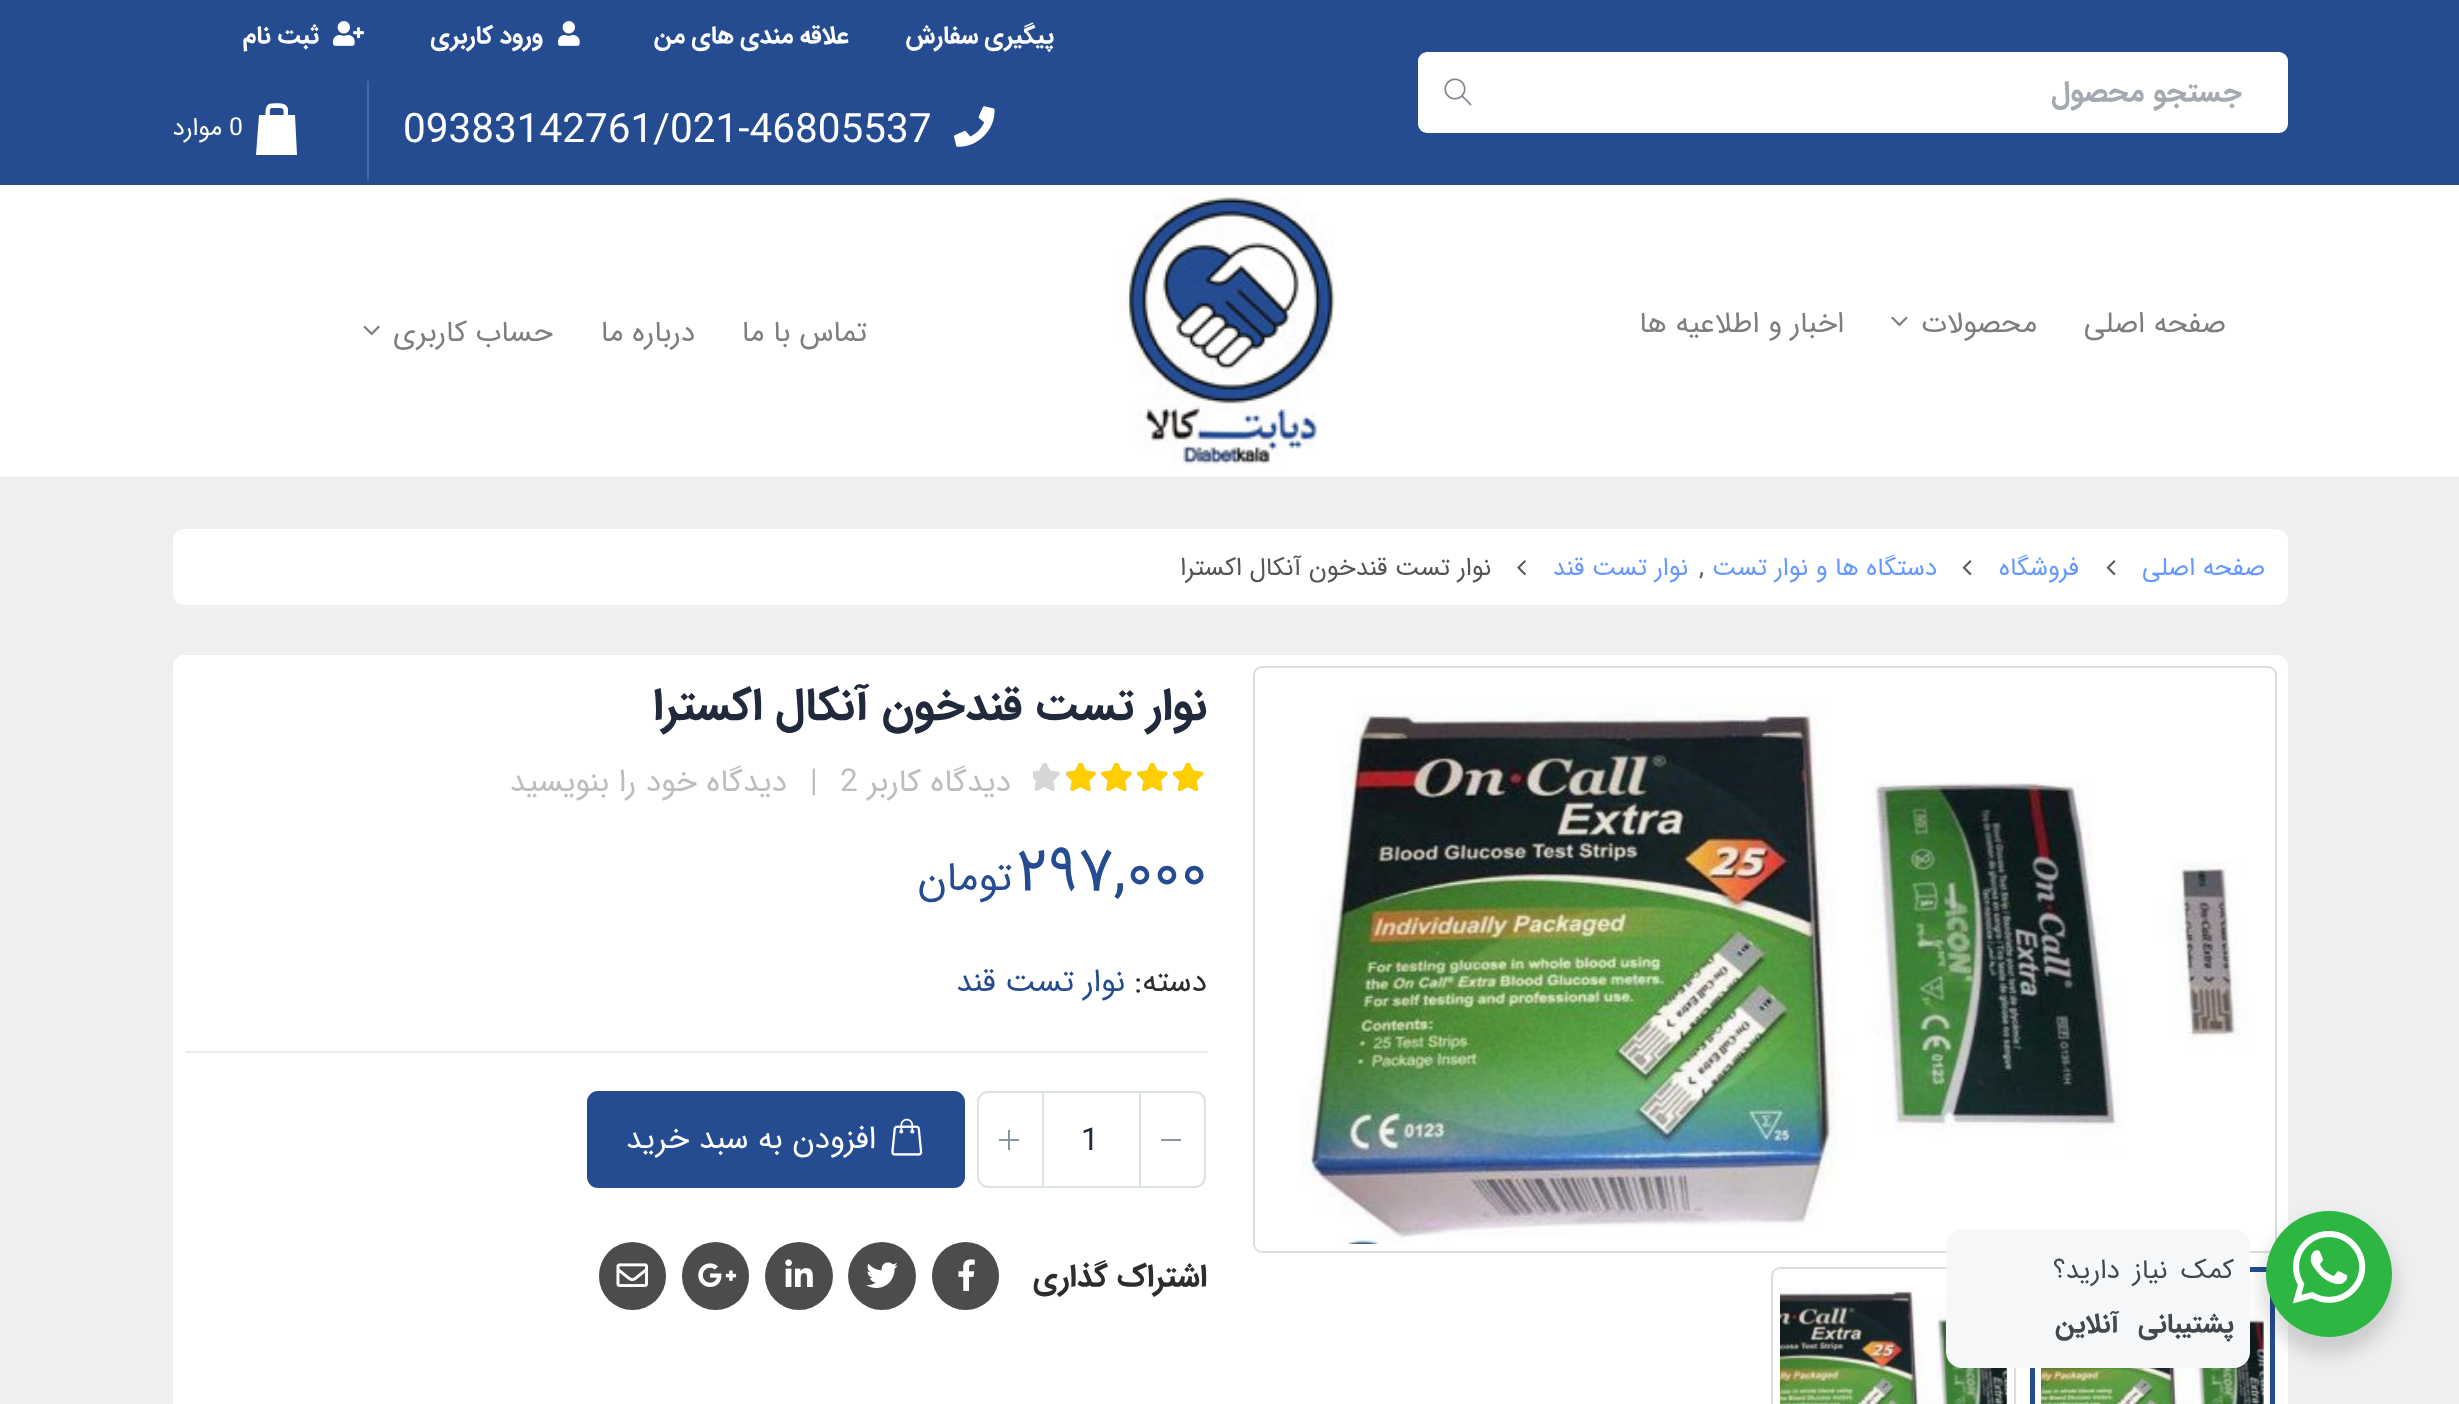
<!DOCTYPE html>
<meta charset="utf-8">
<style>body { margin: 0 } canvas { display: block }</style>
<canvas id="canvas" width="2459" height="1404"></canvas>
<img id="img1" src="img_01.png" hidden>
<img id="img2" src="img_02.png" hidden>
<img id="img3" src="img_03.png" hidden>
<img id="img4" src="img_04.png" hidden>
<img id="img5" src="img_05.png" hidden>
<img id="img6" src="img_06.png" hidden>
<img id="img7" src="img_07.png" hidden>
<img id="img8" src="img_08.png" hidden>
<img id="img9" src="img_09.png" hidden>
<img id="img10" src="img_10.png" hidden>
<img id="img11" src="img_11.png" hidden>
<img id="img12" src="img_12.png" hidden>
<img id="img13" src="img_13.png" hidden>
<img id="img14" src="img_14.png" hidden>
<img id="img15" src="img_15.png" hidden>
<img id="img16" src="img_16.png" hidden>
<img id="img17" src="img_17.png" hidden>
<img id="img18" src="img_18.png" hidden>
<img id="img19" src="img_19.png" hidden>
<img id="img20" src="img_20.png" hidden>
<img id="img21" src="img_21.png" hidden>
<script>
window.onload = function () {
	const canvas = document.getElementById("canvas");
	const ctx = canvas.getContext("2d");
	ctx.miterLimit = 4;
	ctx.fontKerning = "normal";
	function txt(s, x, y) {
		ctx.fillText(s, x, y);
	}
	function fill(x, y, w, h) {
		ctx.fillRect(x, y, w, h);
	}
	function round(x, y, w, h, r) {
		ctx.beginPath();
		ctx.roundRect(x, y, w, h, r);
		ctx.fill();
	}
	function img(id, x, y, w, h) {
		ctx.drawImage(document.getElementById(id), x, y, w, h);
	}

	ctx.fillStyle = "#FFFFFF";
	fill(0, 0, 2459, 1404);
	ctx.fillStyle = "#254C91";
	fill(0, 0, 2459, 185);
	ctx.fillStyle = "#FFFFFF";
	round(1418, 52, 870, 81, 9);
	img("img1", 1444, 78, 28, 28);
	img("img2", 558, 21, 22, 25);
	img("img3", 333, 21, 31, 25);
	img("img4", 954, 106, 41, 41);
	ctx.fillStyle = "#4667A2";
	fill(367, 81, 2, 99);
	ctx.fillStyle = "#FFFFFF";
	ctx.beginPath();
	ctx.moveTo(297, 155);
	ctx.lineTo(256, 155);
	ctx.lineTo(259, 115);
	ctx.lineTo(295, 115);
	ctx.closePath();
	ctx.fill();
	ctx.beginPath();
	ctx.moveTo(272, 103.5);
	ctx.bezierCurveTo(277.5, 103.5, 286.5, 102, 288, 109);
	ctx.lineTo(288, 115);
	ctx.lineTo(265.5, 115);
	ctx.bezierCurveTo(265.5, 110, 265.5, 103.5, 272, 103.5);
	ctx.closePath();
	ctx.moveTo(272, 108);
	ctx.lineTo(280, 108);
	ctx.bezierCurveTo(284.5, 108, 283.5, 111, 283.5, 115);
	ctx.lineTo(270, 115);
	ctx.bezierCurveTo(270, 113, 269, 108, 272, 108);
	ctx.closePath();
	ctx.fill("evenodd");
	ctx.fillStyle = "#ECECEC";
	fill(0, 477, 2459, 2);
	img("img5", 1891, 316, 17, 11);
	img("img6", 1119, 196, 216, 271);
	img("img7", 363, 325, 17, 11);
	ctx.fillStyle = "#EEEFF1";
	fill(0, 479, 2459, 925);
	ctx.fillStyle = "#FFFFFF";
	round(173, 529, 2115, 76, 11);
	img("img8", 2106, 560, 10, 16);
	img("img8", 1962, 560, 10, 16);
	img("img9", 1517, 560, 9, 16);
	round(173, 655, 2115, 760, 11);
	ctx.beginPath();
	ctx.roundRect(1254, 667, 1022, 585, 8);
	ctx.strokeStyle = "#DDDDDD";
	ctx.lineWidth = 2;
	ctx.stroke();
	img("img10", 1300, 703, 950, 541);
	ctx.strokeStyle = "#254C91";
	ctx.lineWidth = 5;
	ctx.strokeRect(2032.5, 1269.5, 240, 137);
	img("img11", 2041, 1290, 223, 114);
	ctx.beginPath();
	ctx.roundRect(1772, 1268, 243, 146, 8);
	ctx.strokeStyle = "#DDDDDD";
	ctx.lineWidth = 2;
	ctx.stroke();
	img("img12", 1780, 1288, 228, 116);
	img("img13", 1033, 763, 171, 28);
	img("img14", 1067, 763, 137, 29);
	ctx.fillStyle = "#EBEBEB";
	fill(185, 1051, 1023, 2);
	ctx.fillStyle = "#DAE2E6";
	fill(1042, 1091, 99, 2);
	fill(1042, 1186, 99, 2);
	ctx.beginPath();
	ctx.roundRect(1140, 1092, 65, 95, [0, 10, 10, 0]);
	ctx.strokeStyle = "#DAE2E6";
	ctx.stroke();
	ctx.fillStyle = "#8798A2";
	fill(1161, 1139, 20, 2);
	ctx.beginPath();
	ctx.roundRect(978, 1092, 65, 95, [10, 0, 0, 10]);
	ctx.stroke();
	fill(999, 1139, 20, 2);
	fill(1008, 1130, 2, 20);
	ctx.fillStyle = "#254C91";
	ctx.beginPath();
	ctx.roundRect(588, 1092, 376, 95, 10);
	ctx.fill();
	ctx.strokeStyle = "#254C91";
	ctx.stroke();
	img("img15", 891, 1118, 32, 38);
	ctx.fillStyle = "#4C4C4C";
	round(932, 1242, 67, 68, 33.5);
	img("img16", 958, 1259, 17, 32);
	ctx.beginPath();
	ctx.arc(882, 1276, 34, 0, Math.PI * 2);
	ctx.fill();
	img("img17", 866, 1262, 32, 26);
	ctx.beginPath();
	ctx.arc(799, 1276, 34, 0, Math.PI * 2);
	ctx.fill();
	img("img18", 785, 1259, 28, 28);
	round(682, 1242, 67, 68, 33.5);
	img("img19", 698, 1263, 39, 24);
	round(599, 1242, 67, 68, 33.5);
	img("img20", 616, 1263, 32, 24);
	ctx.fillStyle = "rgba(0, 0, 0, 0.14)";
	ctx.filter = "blur(9px)";
	ctx.beginPath();
	ctx.roundRect(2261, 1220, 135, 135, 67.5);
	ctx.fill();
	ctx.filter = "none";
	ctx.fillStyle = "#2DB742";
	ctx.beginPath();
	ctx.arc(2329, 1274, 63, 0, Math.PI * 2);
	ctx.fill();
	img("img21", 2292, 1231, 74, 73);
	ctx.fillStyle = "#F5F7F9";
	round(1946, 1229, 304, 139, 16);
	ctx.direction = "rtl";
	ctx.font = "bold 29.25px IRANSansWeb";
	ctx.fillStyle = "#A5A9B1";
	txt("جستجو محصول", 2242, 101);
	ctx.letterSpacing = "0.6px";
	ctx.wordSpacing = "-1.5px";
	ctx.font = "bold 24.75px IRANSansWeb";
	ctx.fillStyle = "#FFFFFF";
	txt("پیگیری سفارش", 1054, 43);
	txt("علاقه مندی های من", 849, 43);
	txt("ورود کاربری", 543, 43);
	txt("ثبت نام", 319, 43);
	ctx.letterSpacing = "0px";
	ctx.wordSpacing = "0px";
	ctx.direction = "ltr";
	ctx.font = "40.5px IRANSansWeb";
	txt("09383142761/021-46805537", 403, 142);
	ctx.font = "24.75px IRANSansWeb";
	txt("0", 229, 135);
	ctx.direction = "rtl";
	txt("موارد", 222, 135);
	ctx.font = "29.25px IRANSansWeb";
	ctx.fillStyle = "#7E7E7E";
	txt("صفحه اصلی", 2226, 332);
	txt("محصولات", 2037, 332);
	txt("اخبار و اطلاعیه ها", 1844, 332);
	txt("تماس با ما", 867, 341);
	txt("درباره ما", 695, 341);
	txt("حساب کاربری", 553, 341);
	ctx.font = "25.25px IRANSansWeb";
	ctx.fillStyle = "#6699FF";
	txt("صفحه اصلی", 2265, 575);
	txt("فروشگاه", 2079, 575);
	txt("دستگاه ها و نوار تست", 1937, 575);
	ctx.direction = "ltr";
	ctx.fillStyle = "#545454";
	txt(",", 1699, 575);
	ctx.direction = "rtl";
	ctx.fillStyle = "#6699FF";
	txt("نوار تست قند", 1688, 575);
	ctx.fillStyle = "#545454";
	txt("نوار تست قندخون آنکال اکسترا", 1491, 575);
	ctx.font = "bold 45px IRANSansWeb";
	ctx.fillStyle = "#21293C";
	txt("نوار تست قندخون آنکال اکسترا", 1207, 719);
	ctx.font = "31.5px IRANSansWeb";
	ctx.fillStyle = "#BDBDBD";
	txt("دیدگاه کاربر", 1011, 791);
	ctx.direction = "ltr";
	txt("2", 840, 791);
	txt("|", 810, 791);
	ctx.direction = "rtl";
	txt("دیدگاه خود را بنویسید", 787, 791);
	ctx.direction = "ltr";
	ctx.font = "63px IRANSansWeb";
	ctx.fillStyle = "#254C91";
	txt("۲۹۷,۰۰۰", 1017, 890);
	ctx.direction = "rtl";
	ctx.font = "41px IRANSansWeb";
	txt("تومان", 1012, 890);
	ctx.font = "31.5px IRANSansWeb";
	ctx.fillStyle = "#2D2D2D";
	txt("دسته:", 1207, 991);
	ctx.fillStyle = "#254C91";
	txt("نوار تست قند", 1125, 991);
	ctx.direction = "ltr";
	ctx.fillStyle = "#21293C";
	txt("1", 1081, 1150);
	ctx.direction = "rtl";
	ctx.fillStyle = "#FFFFFF";
	txt("افزودن به سبد خرید", 876, 1148);
	ctx.font = "bold 31.5px IRANSansWeb";
	ctx.fillStyle = "#2D2D2D";
	txt("اشتراک گذاری", 1207, 1286);
	ctx.letterSpacing = "-0.75px";
	ctx.wordSpacing = "6px";
	ctx.font = "27px IRANSansWeb";
	ctx.fillStyle = "#43474E";
	txt("کمک نیاز دارید؟", 2234, 1278);
	ctx.wordSpacing = "12px";
	ctx.font = "bold 27px IRANSansWeb";
	txt("پشتیبانی آنلاین", 2234, 1332);
};
</script>
